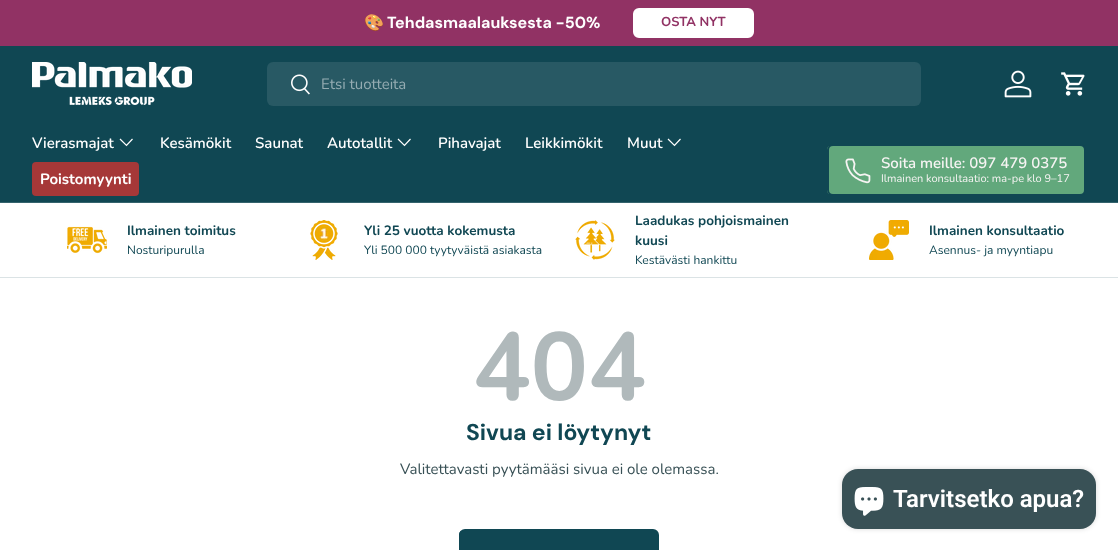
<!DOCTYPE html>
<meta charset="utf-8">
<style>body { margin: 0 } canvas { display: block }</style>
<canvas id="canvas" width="1118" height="550"></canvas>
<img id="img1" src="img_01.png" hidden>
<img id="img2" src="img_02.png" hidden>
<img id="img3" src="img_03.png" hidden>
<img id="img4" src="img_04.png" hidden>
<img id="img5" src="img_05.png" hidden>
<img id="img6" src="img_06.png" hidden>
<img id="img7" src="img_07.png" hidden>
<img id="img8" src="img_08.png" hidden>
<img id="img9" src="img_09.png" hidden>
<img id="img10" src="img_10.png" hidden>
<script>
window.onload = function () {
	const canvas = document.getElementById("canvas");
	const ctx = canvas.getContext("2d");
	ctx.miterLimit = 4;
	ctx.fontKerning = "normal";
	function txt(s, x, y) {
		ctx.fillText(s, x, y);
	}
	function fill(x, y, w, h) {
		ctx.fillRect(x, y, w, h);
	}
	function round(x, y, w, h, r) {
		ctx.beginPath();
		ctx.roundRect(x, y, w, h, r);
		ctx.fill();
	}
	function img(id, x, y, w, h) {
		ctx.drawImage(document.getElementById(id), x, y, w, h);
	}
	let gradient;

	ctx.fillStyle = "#FFFFFF";
	fill(0, 0, 1118, 550);
	ctx.fillStyle = "#913264";
	fill(0, 0, 1118, 46);
	ctx.fillStyle = "#FFFFFF";
	ctx.beginPath();
	ctx.roundRect(634, 9, 119, 28, 5);
	ctx.fill();
	ctx.strokeStyle = "#FFFFFF";
	ctx.lineWidth = 2;
	ctx.stroke();
	ctx.fillStyle = "#104753";
	fill(0, 46, 1118, 156);
	ctx.fillStyle = "#34636D";
	fill(0, 202, 1118, 1);
	img("img1", 32, 62, 160, 43);
	ctx.fillStyle = "#285964";
	round(267, 62, 654, 44, 6);
	img("img2", 291, 74, 19, 21);
	img("img3", 1004, 70, 28, 28);
	img("img4", 1061, 72, 24, 24);
	ctx.beginPath();
	ctx.moveTo(132.5, 139);
	ctx.lineTo(126.5, 145.5);
	ctx.lineTo(120, 139);
	ctx.lineWidth = 1.2;
	ctx.stroke();
	ctx.beginPath();
	ctx.moveTo(410.5, 139);
	ctx.lineTo(404.5, 145.5);
	ctx.lineTo(398, 139);
	ctx.stroke();
	ctx.beginPath();
	ctx.moveTo(680.5, 139);
	ctx.lineTo(674.5, 145.5);
	ctx.lineTo(668, 139);
	ctx.stroke();
	ctx.fillStyle = "#A63838";
	round(32, 162, 107, 34, 4);
	ctx.save();
	ctx.beginPath();
	ctx.roundRect(827, 144, 259, 52, 6);
	ctx.clip();
	gradient = ctx.createLinearGradient(336, 79, 1067, 261);
	gradient.addColorStop(0.6, "#82B996");
	gradient.addColorStop(0.6, "#62A87C");
	gradient.addColorStop(1, "#62A87C");
	ctx.fillStyle = gradient;
	fill(827, 146, 257, 48);
	ctx.restore();
	ctx.beginPath();
	ctx.roundRect(828, 145, 257, 50, 5);
	ctx.strokeStyle = "#104753";
	ctx.lineWidth = 2;
	ctx.stroke();
	img("img5", 845, 158, 26, 26);
	ctx.fillStyle = "#DBE3E5";
	fill(0, 277, 1118, 1);
	img("img6", 67, 226, 40, 28);
	img("img7", 310, 220, 28, 40);
	img("img8", 575, 220, 40, 40);
	img("img9", 869, 220, 40, 40);
	ctx.save();
	ctx.beginPath();
	ctx.roundRect(459, 529, 200, 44, 6);
	ctx.clip();
	gradient = ctx.createLinearGradient(82, 481, 644, 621);
	gradient.addColorStop(0.6, "#396C77");
	gradient.addColorStop(0.6, "#104753");
	gradient.addColorStop(1, "#104753");
	ctx.fillStyle = gradient;
	fill(459, 531, 198, 19);
	ctx.restore();
	ctx.beginPath();
	ctx.roundRect(460, 530, 198, 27, 5);
	ctx.stroke();
	ctx.fillStyle = "rgba(0, 0, 0, 0.15)";
	ctx.filter = "blur(2.5px)";
	ctx.beginPath();
	ctx.roundRect(842, 469, 254, 60, 16);
	ctx.fill();
	ctx.filter = "none";
	ctx.fillStyle = "#395156";
	round(842, 469, 254, 60, 16);
	img("img10", 854, 487, 30, 29);
	ctx.font = "bold 16px Noto Color Emoji";
	ctx.fillStyle = "#FFFFFF";
	txt("🎨", 364, 28);
	ctx.font = "bold 16px DM Sans";
	txt("Tehdasmaalauksesta -50%", 387, 28);
	ctx.font = "bold 13px Nunito";
	ctx.fillStyle = "#913264";
	txt("OSTA NYT", 661, 26);
	ctx.font = "15px Nunito";
	ctx.fillStyle = "#94ACB2";
	txt("Etsi tuotteita", 321, 89);
	ctx.font = "600 15px Nunito";
	ctx.fillStyle = "#FFFFFF";
	txt("Vierasmajat", 32, 148);
	txt("Kesämökit", 160, 148);
	txt("Saunat", 255, 148);
	txt("Autotallit", 327, 148);
	txt("Pihavajat", 438, 148);
	txt("Leikkimökit", 525, 148);
	txt("Muut", 627, 148);
	ctx.font = "bold 15px Nunito";
	txt("Poistomyynti", 40, 184);
	ctx.font = "600 15px Nunito";
	ctx.fillStyle = "#F6F4F3";
	txt("Soita meille: 097 479 0375", 881, 168);
	ctx.font = "11px Nunito";
	txt("Ilmainen konsultaatio: ma-pe klo 9–17", 881, 182);
	ctx.font = "bold 13.5px Nunito";
	ctx.fillStyle = "#104753";
	txt("Ilmainen toimitus", 127, 235);
	ctx.font = "12px Nunito";
	txt("Nosturipurulla", 127, 254);
	ctx.font = "bold 13.5px Nunito";
	txt("Yli 25 vuotta kokemusta", 364, 235);
	ctx.font = "12px Nunito";
	txt("Yli 500 000 tyytyväistä asiakasta", 364, 254);
	ctx.font = "bold 13.5px Nunito";
	txt("Laadukas pohjoismainen", 635, 225);
	txt("kuusi", 635, 245);
	ctx.font = "12px Nunito";
	txt("Kestävästi hankittu", 635, 264);
	ctx.font = "bold 13.5px Nunito";
	txt("Ilmainen konsultaatio", 929, 235);
	ctx.font = "12px Nunito";
	txt("Asennus- ja myyntiapu", 929, 254);
	ctx.font = "bold 96px Nunito";
	ctx.fillStyle = "#B0B9BB";
	txt("404", 473, 400);
	ctx.font = "bold 23px 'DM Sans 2'";
	ctx.fillStyle = "#104753";
	txt("Sivua ei löytynyt", 466, 440);
	ctx.font = "15px Nunito";
	ctx.fillStyle = "#395156";
	txt("Valitettavasti pyytämääsi sivua ei ole olemassa.", 400, 474);
	ctx.font = "600 24px Roboto";
	ctx.fillStyle = "#FFFFFF";
	txt("Tarvitsetko apua?", 893, 507);
};
</script>
